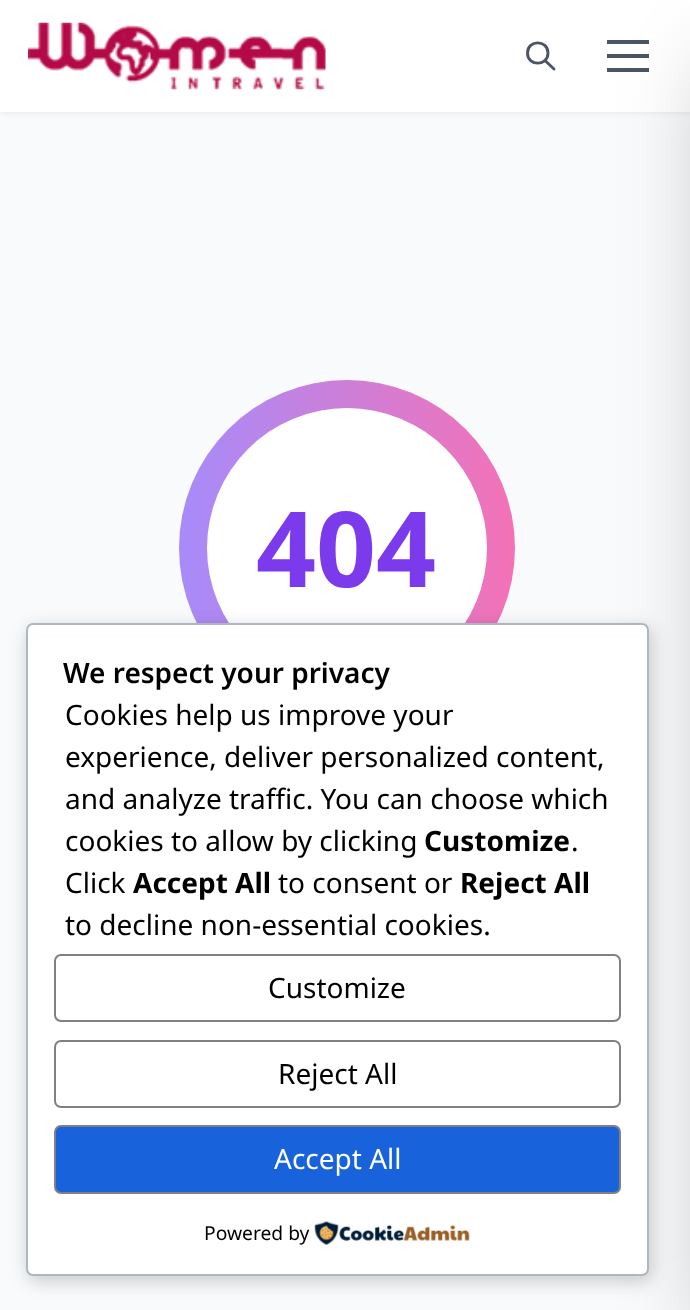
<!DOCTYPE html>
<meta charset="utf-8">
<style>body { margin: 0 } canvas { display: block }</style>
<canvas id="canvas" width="690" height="1310"></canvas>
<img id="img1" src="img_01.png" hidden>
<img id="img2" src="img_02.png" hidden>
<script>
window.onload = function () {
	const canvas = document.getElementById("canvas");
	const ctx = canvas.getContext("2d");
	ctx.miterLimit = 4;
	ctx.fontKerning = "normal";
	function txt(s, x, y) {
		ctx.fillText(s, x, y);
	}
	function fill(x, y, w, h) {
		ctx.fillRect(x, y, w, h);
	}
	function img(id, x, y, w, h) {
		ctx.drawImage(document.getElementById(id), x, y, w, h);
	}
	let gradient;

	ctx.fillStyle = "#F9FAFB";
	fill(0, 0, 690, 1310);
	ctx.fillStyle = "rgba(0, 0, 0, 0.05)";
	ctx.filter = "blur(2px)";
	ctx.beginPath();
	ctx.rect(0, 2, 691, 112);
	ctx.fill();
	ctx.filter = "none";
	ctx.fillStyle = "#FFFFFF";
	fill(0, 0, 690, 112);
	ctx.fillStyle = "#4B5563";
	fill(607, 40, 42, 4);
	fill(607, 54, 42, 4);
	fill(607, 68, 42, 4);
	ctx.fillStyle = "rgba(0, 0, 0, 0.25)";
	ctx.filter = "blur(44px)";
	ctx.beginPath();
	ctx.rect(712, 65, 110, 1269);
	ctx.fill();
	ctx.filter = "none";
	img("img1", 28, 22, 298, 68);
	ctx.beginPath();
	ctx.moveTo(554, 69);
	ctx.lineTo(545, 60.5);
	ctx.moveTo(548, 53);
	ctx.bezierCurveTo(548, 66.5, 527.5, 66.5, 527.5, 53);
	ctx.bezierCurveTo(527.5, 39.5, 548, 39.5, 548, 53);
	ctx.closePath();
	ctx.strokeStyle = "#4B5563";
	ctx.lineWidth = 2.9;
	ctx.lineCap = "round";
	ctx.lineJoin = "round";
	ctx.stroke();
	gradient = ctx.createLinearGradient(179, 548, 515, 548);
	gradient.addColorStop(0, "#A78BFA");
	gradient.addColorStop(1, "#F472B6");
	ctx.fillStyle = gradient;
	ctx.beginPath();
	ctx.arc(347, 548, 168, 0, Math.PI * 2);
	ctx.fill();
	ctx.fillStyle = "#FFFFFF";
	ctx.beginPath();
	ctx.arc(347, 548, 140, 0, Math.PI * 2);
	ctx.fill();
	ctx.fillStyle = "rgba(0, 0, 0, 0.2)";
	ctx.filter = "blur(9px)";
	ctx.beginPath();
	ctx.roundRect(28, 628, 623, 653, 7);
	ctx.fill();
	ctx.filter = "none";
	ctx.fillStyle = "#FFFFFF";
	ctx.beginPath();
	ctx.roundRect(27, 624, 621, 651, 6);
	ctx.fill();
	ctx.strokeStyle = "#ABB8C3";
	ctx.lineWidth = 2;
	ctx.lineJoin = "miter";
	ctx.stroke();
	ctx.beginPath();
	ctx.roundRect(55, 955, 565, 66, 6);
	ctx.strokeStyle = "#808080";
	ctx.stroke();
	ctx.beginPath();
	ctx.roundRect(55, 1041, 565, 66, 6);
	ctx.stroke();
	ctx.fillStyle = "#1863DC";
	ctx.beginPath();
	ctx.roundRect(55, 1126, 565, 67, 6);
	ctx.fill();
	ctx.stroke();
	img("img2", 314, 1221, 156, 24);
	ctx.font = "bold 105px Noto Sans";
	ctx.fillStyle = "#7C3AED";
	txt("404", 256, 587);
	ctx.font = "600 28px Noto Sans";
	ctx.fillStyle = "#000000";
	txt("We respect your privacy", 63, 683);
	ctx.font = "28px Noto Sans";
	txt("Cookies help us improve your", 65, 725);
	txt("experience, deliver personalized content,", 65, 767);
	txt("and analyze traffic. You can choose which", 65, 809);
	txt("cookies to allow by clicking", 65, 851);
	ctx.font = "bold 28px Noto Sans";
	txt("Customize", 424, 851);
	ctx.font = "28px Noto Sans";
	txt(".", 571, 851);
	txt("Click", 65, 893);
	ctx.font = "bold 28px Noto Sans";
	txt("Accept All", 133, 893);
	ctx.font = "28px Noto Sans";
	txt("to consent or", 278, 893);
	ctx.font = "bold 28px Noto Sans";
	txt("Reject All", 460, 893);
	ctx.font = "28px Noto Sans";
	txt("to decline non-essential cookies.", 65, 935);
	txt("Customize", 268, 998);
	txt("Reject All", 278, 1084);
	ctx.fillStyle = "#FFFFFF";
	txt("Accept All", 274, 1169);
	ctx.font = "19.25px Noto Sans";
	ctx.fillStyle = "#000000";
	txt("Powered by", 204, 1240);
};
</script>
